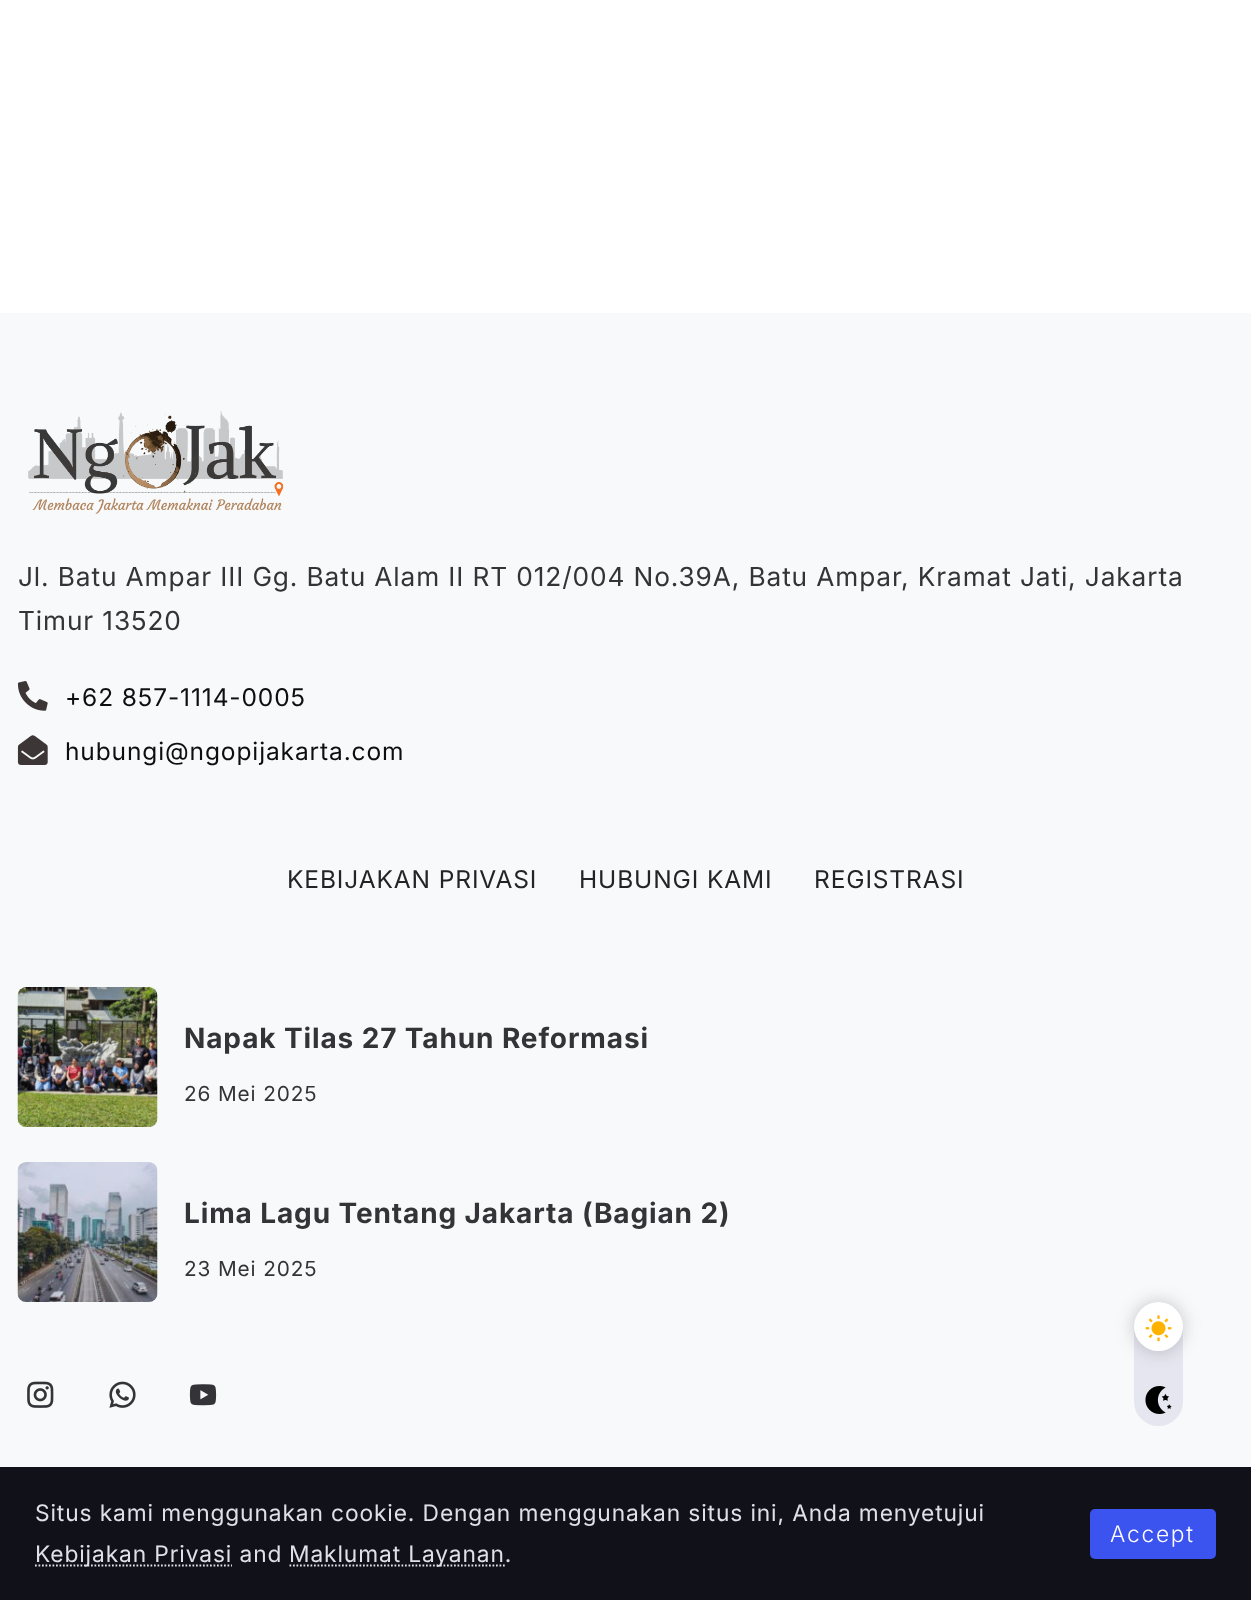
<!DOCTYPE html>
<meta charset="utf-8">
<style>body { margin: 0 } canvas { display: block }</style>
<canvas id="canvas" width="1251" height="1600"></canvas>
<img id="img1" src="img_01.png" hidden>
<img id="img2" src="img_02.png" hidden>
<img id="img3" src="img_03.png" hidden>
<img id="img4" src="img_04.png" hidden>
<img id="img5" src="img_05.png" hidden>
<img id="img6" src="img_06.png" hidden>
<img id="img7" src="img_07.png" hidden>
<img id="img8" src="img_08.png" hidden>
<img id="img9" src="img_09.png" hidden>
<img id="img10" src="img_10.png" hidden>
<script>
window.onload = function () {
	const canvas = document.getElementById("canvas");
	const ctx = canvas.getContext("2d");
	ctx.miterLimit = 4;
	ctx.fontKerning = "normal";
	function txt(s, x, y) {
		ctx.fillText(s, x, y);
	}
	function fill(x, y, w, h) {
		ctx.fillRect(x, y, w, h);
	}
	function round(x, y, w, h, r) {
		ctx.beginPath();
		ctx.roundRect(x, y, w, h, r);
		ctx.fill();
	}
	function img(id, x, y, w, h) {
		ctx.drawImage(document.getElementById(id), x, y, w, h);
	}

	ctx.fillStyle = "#FFFFFF";
	fill(0, 0, 1251, 1600);
	ctx.fillStyle = "#F8F9FA";
	fill(0, 313, 1251, 1154);
	img("img1", 28, 411, 256, 103);
	img("img2", 17, 681, 31, 30);
	img("img3", 17, 735, 31, 30);
	img("img4", 17, 987, 141, 140);
	img("img5", 17, 1162, 141, 140);
	img("img6", 27, 1381, 27, 27);
	img("img7", 109, 1381, 27, 27);
	img("img8", 189, 1384, 28, 22);
	ctx.fillStyle = "#E5E6EF";
	round(1134, 1302, 49, 124, 24.5);
	ctx.fillStyle = "rgba(47, 49, 57, 0.26)";
	ctx.filter = "blur(9px)";
	ctx.beginPath();
	ctx.roundRect(1134, 1302, 49, 49, 24.5);
	ctx.fill();
	ctx.filter = "none";
	ctx.fillStyle = "#FFFFFF";
	ctx.beginPath();
	ctx.arc(1158.5, 1326.5, 24.5, 0, Math.PI * 2);
	ctx.fill();
	img("img9", 1145, 1315, 27, 27);
	img("img10", 1145, 1386, 27, 28);
	ctx.fillStyle = "#101119";
	fill(0, 1467, 1251, 133);
	ctx.beginPath();
	ctx.moveTo(35, 1565.5);
	ctx.lineTo(232, 1565.5);
	ctx.strokeStyle = "#DFE1E7";
	ctx.lineWidth = 1.8;
	ctx.setLineDash([1.75, 1.75]);
	ctx.stroke();
	ctx.beginPath();
	ctx.moveTo(289.5, 1565.5);
	ctx.lineTo(505, 1565.5);
	ctx.stroke();
	ctx.fillStyle = "#3B53EF";
	round(1090, 1509, 126, 50, 5);
	ctx.letterSpacing = "0.88px";
	ctx.font = "26.25px Inter";
	ctx.fillStyle = "#333338";
	txt("Jl. Batu Ampar III Gg. Batu Alam II RT 012/004 No.39A, Batu Ampar, Kramat Jati, Jakarta", 18, 586);
	txt("Timur 13520", 18, 630);
	ctx.font = "24.5px Inter";
	ctx.fillStyle = "#0F0E0E";
	txt("+62 857-1114-0005", 65, 706);
	txt("hubungi@ngopijakarta.com", 65, 760);
	ctx.fillStyle = "#232428";
	txt("KEBIJAKAN PRIVASI", 287, 888);
	txt("HUBUNGI KAMI", 579, 888);
	txt("REGISTRASI", 814, 888);
	ctx.font = "bold 28px Inter";
	ctx.fillStyle = "#333338";
	txt("Napak Tilas 27 Tahun Reformasi", 184, 1048);
	ctx.font = "20.75px Inter";
	txt("26 Mei 2025", 184, 1101);
	ctx.font = "bold 28px Inter";
	txt("Lima Lagu Tentang Jakarta (Bagian 2)", 184, 1223);
	ctx.font = "20.75px Inter";
	txt("23 Mei 2025", 184, 1276);
	ctx.font = "22.75px Inter";
	ctx.fillStyle = "#DFE1E7";
	txt("Situs kami menggunakan cookie. Dengan menggunakan situs ini, Anda menyetujui", 35, 1521);
	txt("Kebijakan Privasi and", 35, 1562);
	txt("Maklumat Layanan.", 289, 1562);
	ctx.letterSpacing = "1.75px";
	ctx.font = "300 22.75px Inter";
	ctx.fillStyle = "#FFFFFF";
	txt("Accept", 1110, 1542);
};
</script>
